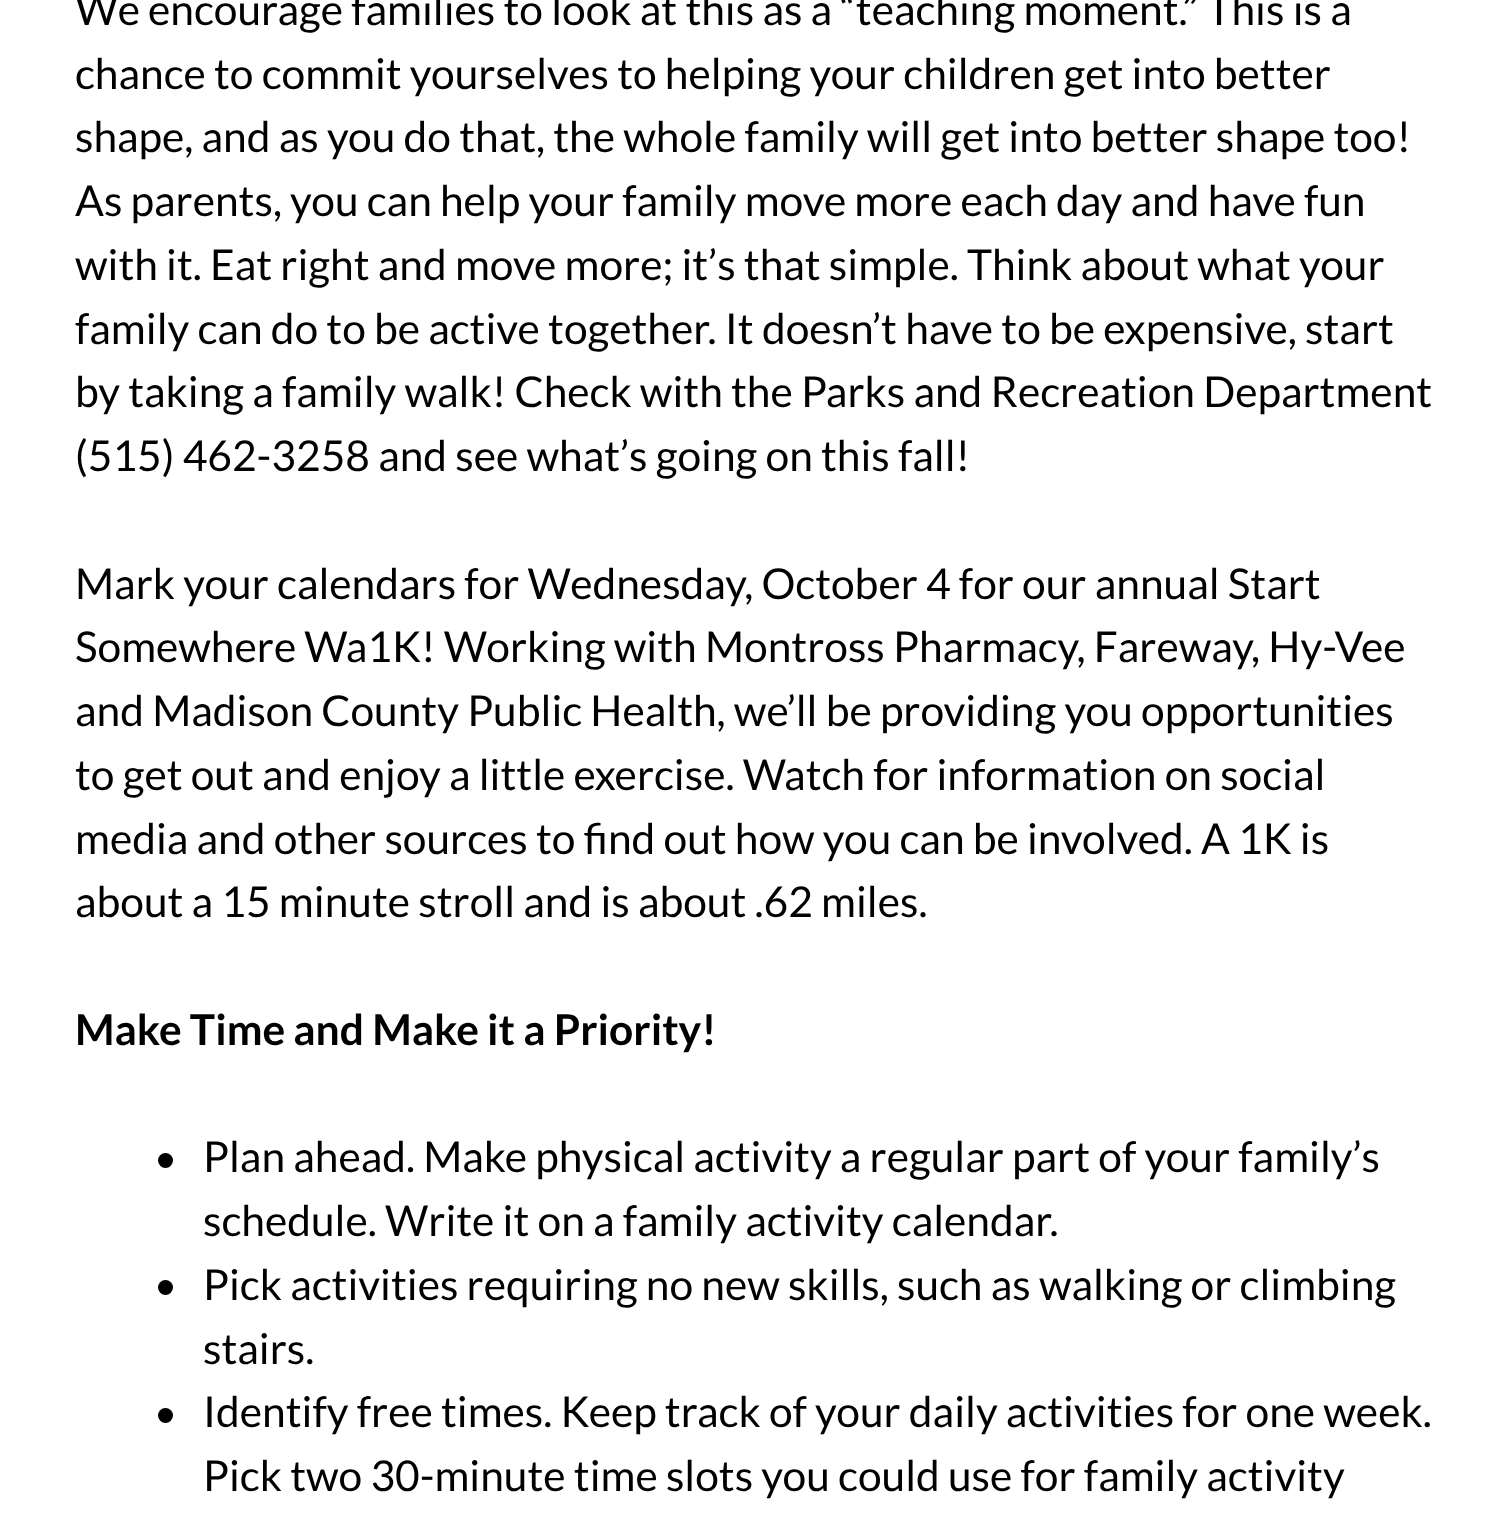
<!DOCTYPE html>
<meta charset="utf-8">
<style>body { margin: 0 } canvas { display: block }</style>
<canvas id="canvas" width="1511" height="1525"></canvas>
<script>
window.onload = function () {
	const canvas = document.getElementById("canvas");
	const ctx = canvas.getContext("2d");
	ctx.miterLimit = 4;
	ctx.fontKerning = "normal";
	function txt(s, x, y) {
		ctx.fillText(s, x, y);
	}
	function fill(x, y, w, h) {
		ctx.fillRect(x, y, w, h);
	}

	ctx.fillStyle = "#FFFFFF";
	fill(0, 0, 1511, 1525);
	ctx.fillStyle = "#000000";
	ctx.beginPath();
	ctx.arc(165.5, 1160.5, 7.5, 0, Math.PI * 2);
	ctx.fill();
	ctx.beginPath();
	ctx.arc(165.5, 1287.5, 7.5, 0, Math.PI * 2);
	ctx.fill();
	ctx.beginPath();
	ctx.arc(165.5, 1415.5, 7.5, 0, Math.PI * 2);
	ctx.fill();
	ctx.font = "42.5px Lato";
	txt("We encourage families to look at this as a “teaching moment.” This is a", 75, 25);
	txt("chance to commit yourselves to helping your children get into better", 75, 89);
	txt("shape, and as you do that, the whole family will get into better shape too!", 75, 152);
	txt("As parents, you can help your family move more each day and have fun", 75, 216);
	txt("with it. Eat right and move more; it’s that simple. Think about what your", 75, 280);
	txt("family can do to be active together. It doesn’t have to be expensive, start", 75, 344);
	txt("by taking a family walk! Check with the Parks and Recreation Department", 75, 407);
	txt("(515) 462-3258 and see what’s going on this fall!", 75, 471);
	txt("Mark your calendars for Wednesday, October 4 for our annual Start", 75, 599);
	txt("Somewhere Wa1K! Working with Montross Pharmacy, Fareway, Hy-Vee", 75, 662);
	txt("and Madison County Public Health, we’ll be providing you opportunities", 75, 726);
	txt("to get out and enjoy a little exercise. Watch for information on social", 75, 790);
	txt("media and other sources to find out how you can be involved. A 1K is", 75, 854);
	txt("about a 15 minute stroll and is about .62 miles.", 75, 917);
	ctx.font = "bold 42.5px Lato";
	txt("Make Time and Make it a Priority!", 75, 1045);
	ctx.font = "42.5px Lato";
	txt("Plan ahead. Make physical activity a regular part of your family’s", 203, 1172);
	txt("schedule. Write it on a family activity calendar.", 203, 1236);
	txt("Pick activities requiring no new skills, such as walking or climbing", 203, 1300);
	txt("stairs.", 203, 1364);
	txt("Identify free times. Keep track of your daily activities for one week.", 203, 1427);
	txt("Pick two 30-minute time slots you could use for family activity", 203, 1491);
};
</script>
